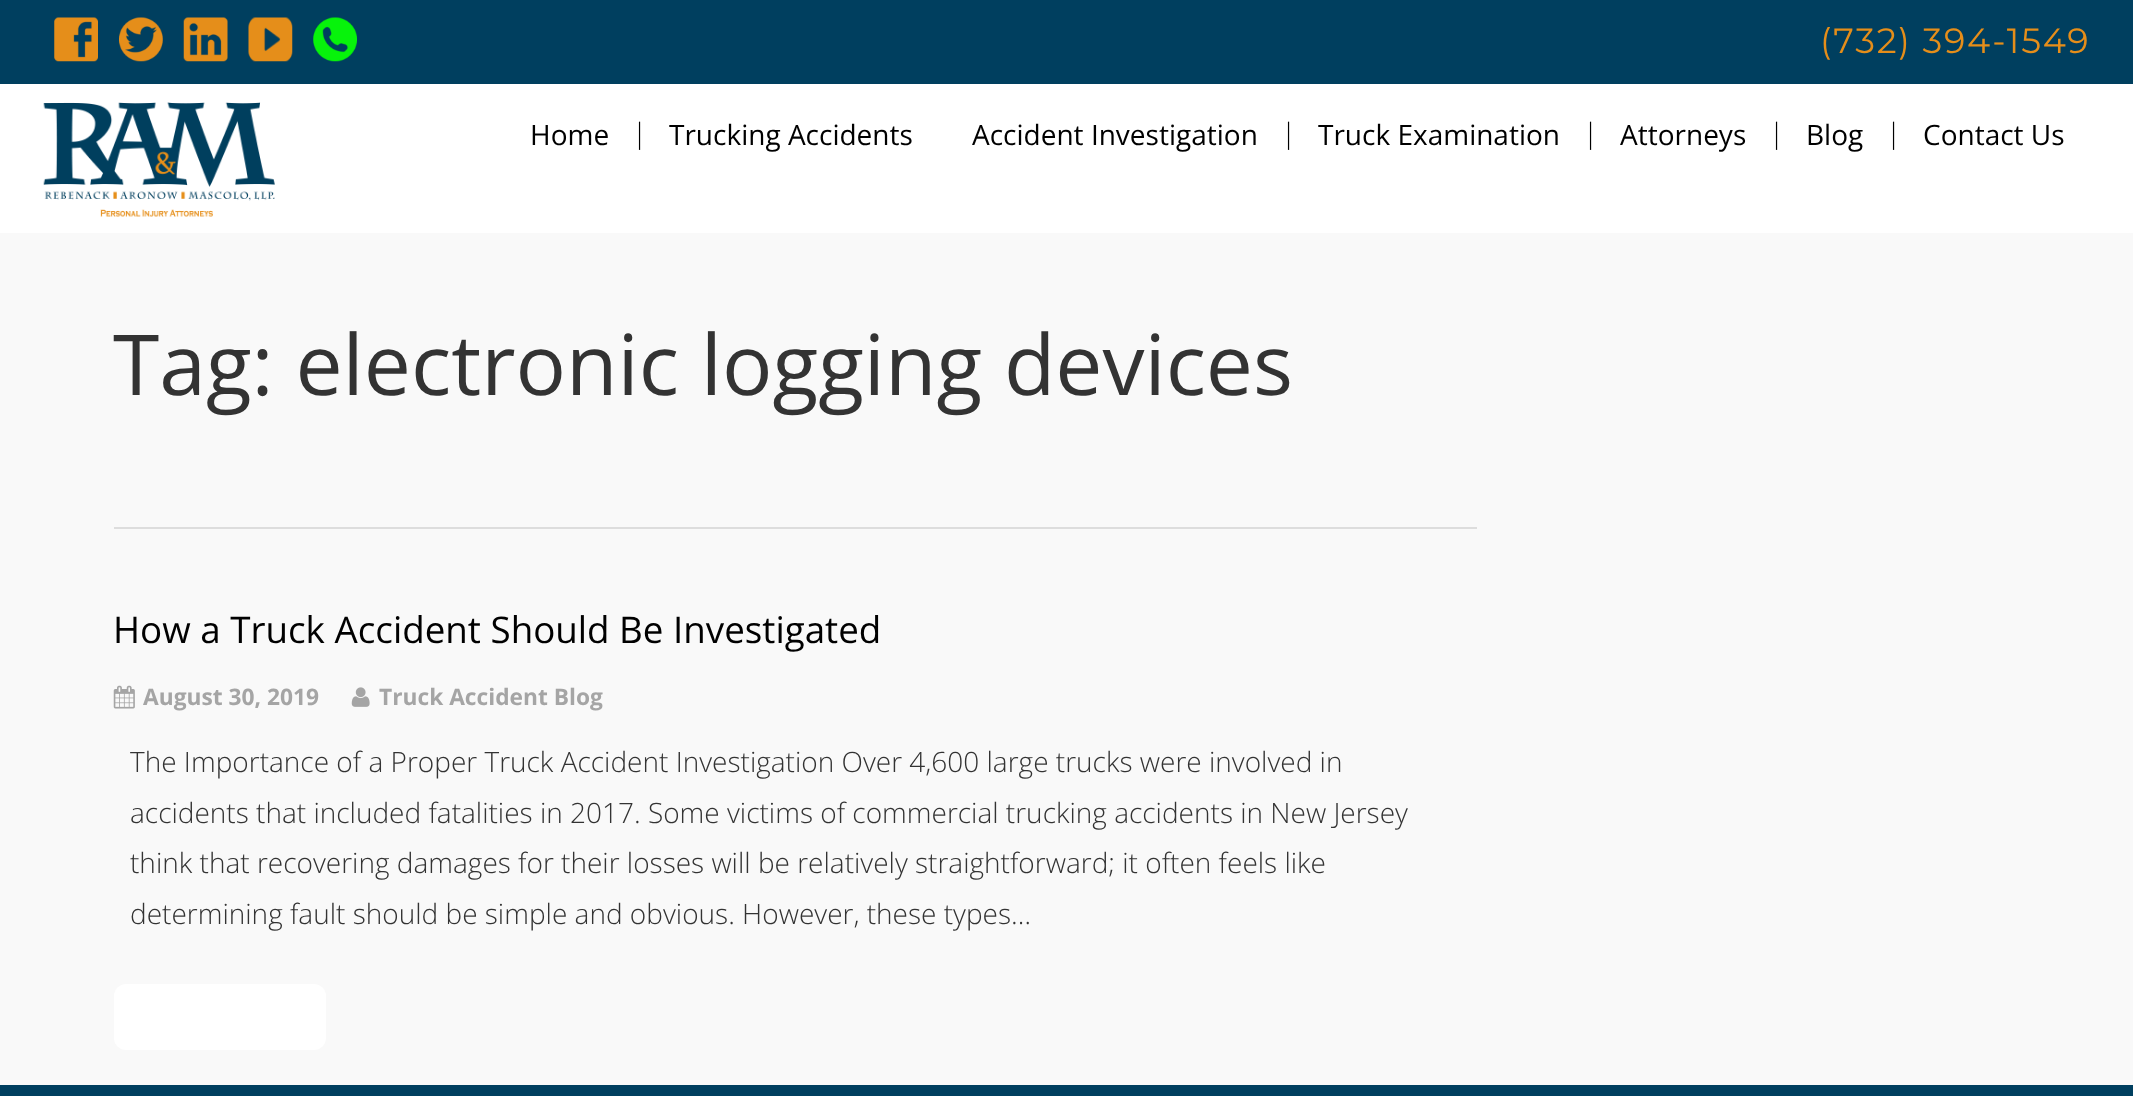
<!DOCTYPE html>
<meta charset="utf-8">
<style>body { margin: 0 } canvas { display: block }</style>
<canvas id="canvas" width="2133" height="1096"></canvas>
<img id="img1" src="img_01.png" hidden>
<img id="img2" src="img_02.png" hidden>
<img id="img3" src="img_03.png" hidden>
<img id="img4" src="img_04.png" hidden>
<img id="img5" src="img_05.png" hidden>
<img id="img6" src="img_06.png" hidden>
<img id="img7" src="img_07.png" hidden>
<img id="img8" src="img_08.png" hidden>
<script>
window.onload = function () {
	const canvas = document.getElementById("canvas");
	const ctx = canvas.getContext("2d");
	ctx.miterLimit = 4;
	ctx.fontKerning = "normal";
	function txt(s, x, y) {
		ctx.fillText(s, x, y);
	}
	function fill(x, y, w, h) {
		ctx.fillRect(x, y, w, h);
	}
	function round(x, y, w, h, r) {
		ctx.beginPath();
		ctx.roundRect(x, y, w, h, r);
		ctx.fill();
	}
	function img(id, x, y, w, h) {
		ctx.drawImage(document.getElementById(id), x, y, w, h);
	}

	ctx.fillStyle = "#F9F9F9";
	fill(0, 0, 2133, 1096);
	ctx.fillStyle = "#FFFFFF";
	fill(0, 84, 2133, 149);
	ctx.fillStyle = "#003F5F";
	fill(0, 0, 2133, 84);
	img("img1", 54, 17, 44, 45);
	img("img2", 119, 17, 44, 45);
	img("img3", 183, 17, 45, 45);
	img("img4", 248, 17, 45, 45);
	img("img5", 313, 17, 44, 45);
	img("img6", 43, 102, 232, 115);
	ctx.fillStyle = "#DDDDDD";
	fill(114, 527, 1363, 2);
	img("img7", 113, 685, 22, 24);
	img("img8", 351, 687, 19, 20);
	ctx.fillStyle = "#FFFFFF";
	round(114, 984, 212, 66, 12);
	ctx.fillStyle = "#003F5F";
	fill(0, 1085, 2133, 11);
	ctx.letterSpacing = "1.75px";
	ctx.font = "100 35px Montserrat";
	ctx.fillStyle = "#E58E1A";
	txt("(732) 394-1549", 1820, 53);
	ctx.letterSpacing = "0px";
	ctx.font = "28px Open Sans";
	ctx.fillStyle = "#000000";
	txt("Home", 530, 145);
	ctx.font = "300 28px Open Sans";
	txt("|", 632, 143);
	ctx.font = "28px Open Sans";
	txt("Trucking Accidents", 669, 145);
	txt("Accident Investigation", 972, 145);
	ctx.font = "300 28px Open Sans";
	txt("|", 1281, 143);
	ctx.font = "28px Open Sans";
	txt("Truck Examination", 1318, 145);
	ctx.font = "300 28px Open Sans";
	txt("|", 1583, 143);
	ctx.font = "28px Open Sans";
	txt("Attorneys", 1620, 145);
	ctx.font = "300 28px Open Sans";
	txt("|", 1769, 143);
	ctx.font = "28px Open Sans";
	txt("Blog", 1806, 145);
	ctx.font = "300 28px Open Sans";
	txt("|", 1886, 143);
	ctx.font = "28px Open Sans";
	txt("Contact Us", 1923, 145);
	ctx.font = "84px Open Sans";
	ctx.fillStyle = "#333333";
	txt("Tag: electronic logging devices", 113, 395);
	ctx.font = "36.75px Open Sans";
	ctx.fillStyle = "#000000";
	txt("How a Truck Accident Should Be Investigated", 113, 643);
	ctx.font = "bold 22.75px Open Sans";
	ctx.fillStyle = "#A5A5A5";
	txt("August 30, 2019", 143, 705);
	txt("Truck Accident Blog", 379, 705);
	ctx.font = "300 28px Open Sans";
	ctx.fillStyle = "#333333";
	txt("The Importance of a Proper Truck Accident Investigation Over 4,600 large trucks were involved in", 130, 772);
	txt("accidents that included fatalities in 2017. Some victims of commercial trucking accidents in New Jersey", 130, 823);
	txt("think that recovering damages for their losses will be relatively straightforward; it often feels like", 130, 873);
	txt("determining fault should be simple and obvious. However, these types…", 130, 924);
};
</script>
